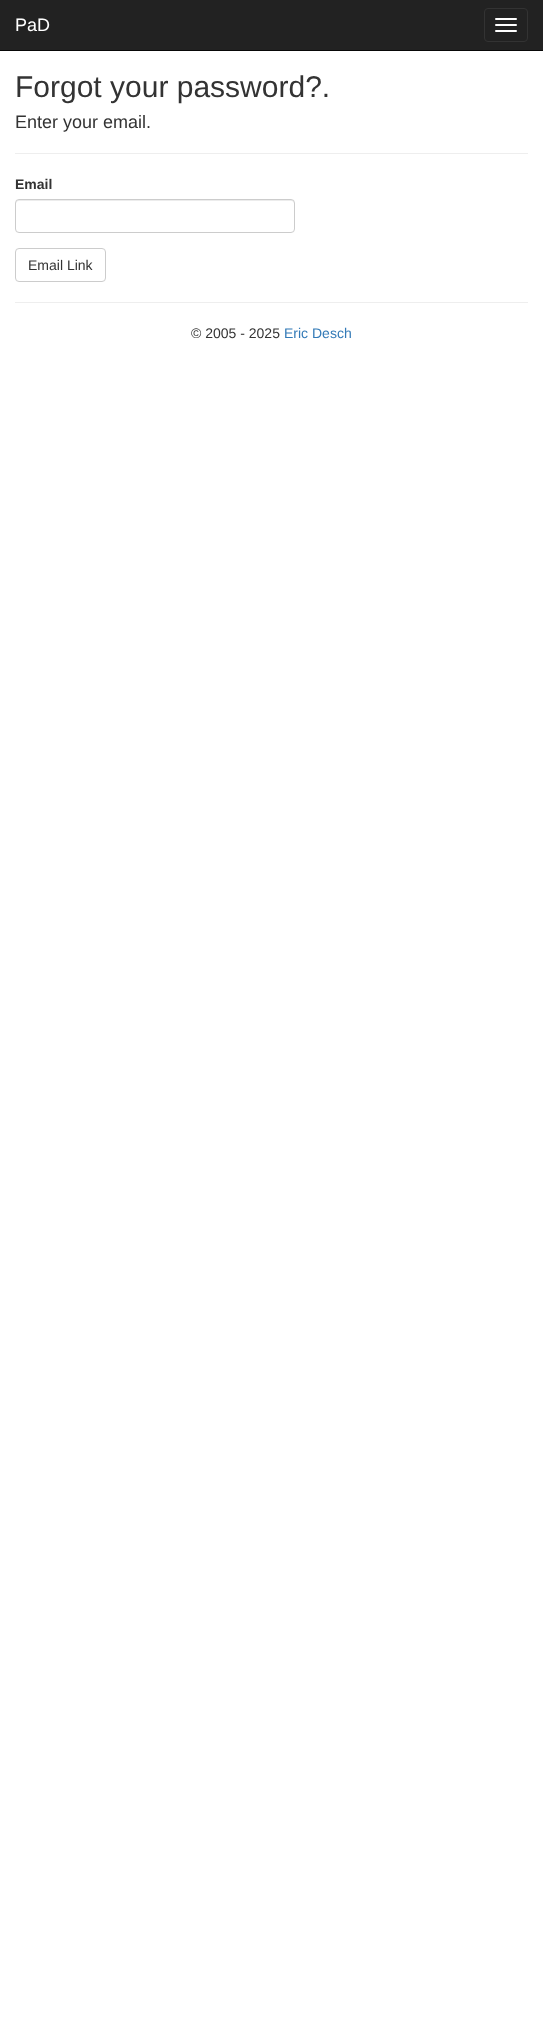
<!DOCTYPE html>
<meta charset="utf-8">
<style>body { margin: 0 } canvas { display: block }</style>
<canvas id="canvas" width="543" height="2027"></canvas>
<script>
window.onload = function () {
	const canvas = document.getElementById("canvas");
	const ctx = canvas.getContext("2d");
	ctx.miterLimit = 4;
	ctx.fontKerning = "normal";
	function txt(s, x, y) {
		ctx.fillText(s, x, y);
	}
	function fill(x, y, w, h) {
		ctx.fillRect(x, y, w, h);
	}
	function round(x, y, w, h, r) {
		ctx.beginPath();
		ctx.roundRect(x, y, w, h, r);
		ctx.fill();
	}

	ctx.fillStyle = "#FFFFFF";
	fill(0, 0, 543, 2027);
	ctx.fillStyle = "#222222";
	fill(0, 0, 543, 50);
	ctx.fillStyle = "#080808";
	fill(0, 50, 543, 1);
	ctx.beginPath();
	ctx.roundRect(484.5, 8.5, 43, 33, 3.5);
	ctx.strokeStyle = "#333333";
	ctx.stroke();
	ctx.fillStyle = "#FFFFFF";
	round(495, 18, 22, 2, 1);
	round(495, 24, 22, 2, 1);
	round(495, 30, 22, 2, 1);
	ctx.fillStyle = "#EEEEEE";
	fill(15, 153, 513, 1);
	ctx.fillStyle = "#ECECEC";
	ctx.beginPath();
	ctx.moveTo(19, 201);
	ctx.lineTo(291, 201);
	ctx.bezierCurveTo(293, 201, 294, 202, 294, 204);
	ctx.lineTo(294, 203);
	ctx.bezierCurveTo(294, 201, 293, 200, 291, 200);
	ctx.lineTo(19, 200);
	ctx.bezierCurveTo(17, 200, 16, 201, 16, 203);
	ctx.lineTo(16, 204);
	ctx.bezierCurveTo(16, 202, 17, 201, 19, 201);
	ctx.closePath();
	ctx.fill();
	ctx.beginPath();
	ctx.roundRect(15.5, 199.5, 279, 33, 3.5);
	ctx.strokeStyle = "#CCCCCC";
	ctx.stroke();
	ctx.beginPath();
	ctx.roundRect(15.5, 248.5, 90, 33, 3.5);
	ctx.stroke();
	ctx.fillStyle = "#EEEEEE";
	fill(15, 302, 513, 1);
	ctx.font = "18px Liberation Sans";
	ctx.fillStyle = "#FFFFFF";
	txt("PaD", 15, 31);
	ctx.font = "30px Liberation Sans";
	ctx.fillStyle = "#333333";
	txt("Forgot your password?.", 15, 97);
	ctx.font = "18px Liberation Sans";
	txt("Enter your email.", 15, 128);
	ctx.font = "bold 14px Liberation Sans";
	txt("Email", 15, 189);
	ctx.font = "14px Liberation Sans";
	txt("Email Link", 28, 270);
	txt("© 2005 - 2025", 191, 338);
	ctx.fillStyle = "#337AB7";
	txt("Eric Desch", 284, 338);
};
</script>
